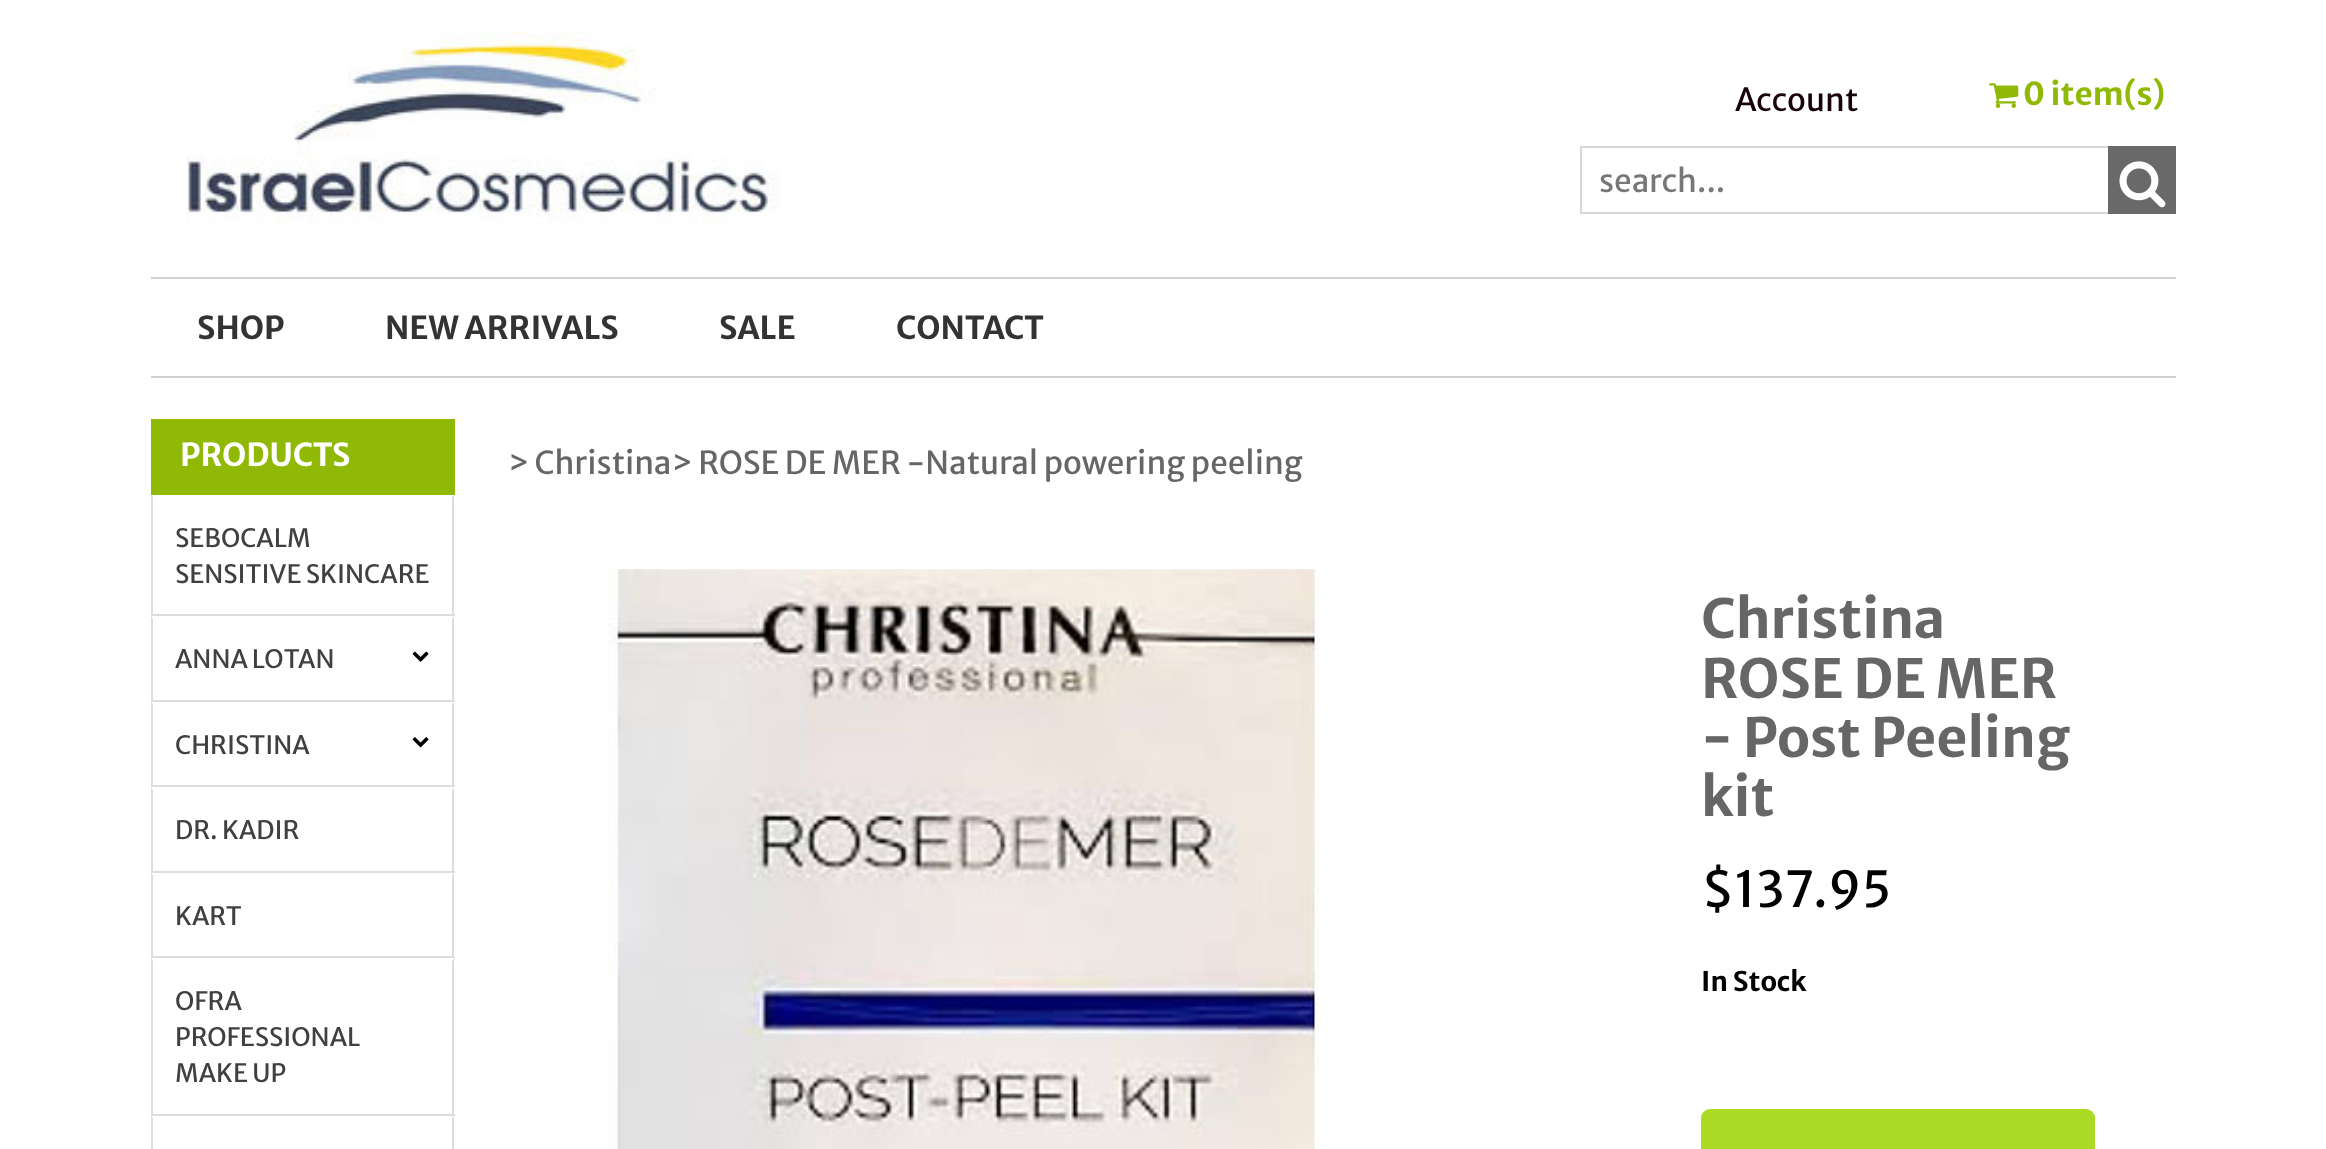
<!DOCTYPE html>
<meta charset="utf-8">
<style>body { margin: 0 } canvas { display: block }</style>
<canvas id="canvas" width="2326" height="1149"></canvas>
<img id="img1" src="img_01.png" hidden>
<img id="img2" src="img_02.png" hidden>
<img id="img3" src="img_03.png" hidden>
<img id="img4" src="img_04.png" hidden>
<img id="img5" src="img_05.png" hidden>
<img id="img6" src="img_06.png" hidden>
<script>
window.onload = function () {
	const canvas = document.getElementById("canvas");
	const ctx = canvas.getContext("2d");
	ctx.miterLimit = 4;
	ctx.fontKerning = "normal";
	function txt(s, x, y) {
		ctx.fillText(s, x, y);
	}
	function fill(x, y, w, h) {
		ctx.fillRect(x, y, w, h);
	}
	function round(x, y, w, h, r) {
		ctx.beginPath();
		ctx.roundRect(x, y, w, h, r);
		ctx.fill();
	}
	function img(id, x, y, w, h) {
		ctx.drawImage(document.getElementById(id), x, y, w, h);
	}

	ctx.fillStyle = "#FFFFFF";
	fill(0, 0, 2326, 1149);
	img("img1", 186, 31, 595, 194);
	img("img2", 1989, 83, 30, 25);
	ctx.strokeStyle = "#D8D8D7";
	ctx.lineWidth = 2;
	ctx.strokeRect(1581, 147, 594, 66);
	ctx.fillStyle = "#696969";
	fill(2108, 146, 68, 68);
	img("img3", 2119, 161, 47, 47);
	ctx.fillStyle = "#D2D2D2";
	fill(151, 277, 2025, 2);
	fill(151, 376, 2025, 2);
	ctx.fillStyle = "#90B905";
	fill(151, 419, 304, 76);
	ctx.fillStyle = "#DDDDDD";
	ctx.beginPath();
	ctx.moveTo(454, 495);
	ctx.lineTo(454, 616);
	ctx.lineTo(452, 614);
	ctx.lineTo(452, 497);
	ctx.closePath();
	ctx.fill();
	fill(151, 614, 304, 2);
	ctx.beginPath();
	ctx.moveTo(151, 616);
	ctx.lineTo(151, 495);
	ctx.lineTo(153, 497);
	ctx.lineTo(153, 614);
	ctx.closePath();
	ctx.fill();
	ctx.beginPath();
	ctx.moveTo(454, 616);
	ctx.lineTo(454, 702);
	ctx.lineTo(452, 700);
	ctx.lineTo(452, 619);
	ctx.closePath();
	ctx.fill();
	fill(151, 700, 304, 2);
	ctx.beginPath();
	ctx.moveTo(151, 702);
	ctx.lineTo(151, 616);
	ctx.lineTo(153, 619);
	ctx.lineTo(153, 700);
	ctx.closePath();
	ctx.fill();
	img("img4", 412, 651, 17, 11);
	ctx.beginPath();
	ctx.moveTo(454, 702);
	ctx.lineTo(454, 788);
	ctx.lineTo(452, 785);
	ctx.lineTo(452, 704);
	ctx.closePath();
	ctx.fill();
	fill(151, 785, 304, 2);
	ctx.beginPath();
	ctx.moveTo(151, 788);
	ctx.lineTo(151, 702);
	ctx.lineTo(153, 704);
	ctx.lineTo(153, 785);
	ctx.closePath();
	ctx.fill();
	img("img5", 412, 737, 17, 11);
	ctx.beginPath();
	ctx.moveTo(454, 788);
	ctx.lineTo(454, 873);
	ctx.lineTo(452, 871);
	ctx.lineTo(452, 790);
	ctx.closePath();
	ctx.fill();
	fill(151, 871, 304, 2);
	ctx.beginPath();
	ctx.moveTo(151, 873);
	ctx.lineTo(151, 788);
	ctx.lineTo(153, 790);
	ctx.lineTo(153, 871);
	ctx.closePath();
	ctx.fill();
	ctx.beginPath();
	ctx.moveTo(454, 873);
	ctx.lineTo(454, 958);
	ctx.lineTo(452, 956);
	ctx.lineTo(452, 875);
	ctx.closePath();
	ctx.fill();
	fill(151, 956, 304, 2);
	ctx.beginPath();
	ctx.moveTo(151, 958);
	ctx.lineTo(151, 873);
	ctx.lineTo(153, 875);
	ctx.lineTo(153, 956);
	ctx.closePath();
	ctx.fill();
	ctx.beginPath();
	ctx.moveTo(454, 958);
	ctx.lineTo(454, 1116);
	ctx.lineTo(452, 1114);
	ctx.lineTo(452, 961);
	ctx.closePath();
	ctx.fill();
	fill(151, 1114, 304, 2);
	ctx.beginPath();
	ctx.moveTo(151, 1116);
	ctx.lineTo(151, 958);
	ctx.lineTo(153, 961);
	ctx.lineTo(153, 1114);
	ctx.closePath();
	ctx.fill();
	ctx.beginPath();
	ctx.moveTo(454, 1116);
	ctx.lineTo(454, 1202);
	ctx.lineTo(452, 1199);
	ctx.lineTo(452, 1118);
	ctx.closePath();
	ctx.fill();
	ctx.beginPath();
	ctx.moveTo(151, 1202);
	ctx.lineTo(151, 1116);
	ctx.lineTo(153, 1118);
	ctx.lineTo(153, 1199);
	ctx.closePath();
	ctx.fill();
	img("img6", 608, 569, 711, 580);
	ctx.fillStyle = "#ABDB25";
	round(1701, 1109, 394, 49, 9);
	ctx.font = "31.5px Merriweather Sans";
	ctx.fillStyle = "#180309";
	txt("Account", 1735, 111);
	ctx.font = "bold 31.5px Merriweather Sans";
	ctx.fillStyle = "#90B905";
	txt("0 item(s)", 2023, 105);
	ctx.font = "31.5px Merriweather Sans";
	ctx.fillStyle = "#777777";
	txt("search...", 1599, 192);
	ctx.font = "bold 31.5px Merriweather Sans";
	ctx.fillStyle = "#333333";
	txt("SHOP", 197, 339);
	txt("NEW ARRIVALS", 385, 339);
	txt("SALE", 719, 339);
	txt("CONTACT", 896, 339);
	ctx.fillStyle = "#FFFFFF";
	txt("PRODUCTS", 180, 466);
	ctx.font = "25.25px Merriweather Sans";
	ctx.fillStyle = "#3F4042";
	txt("SEBOCALM", 175, 547);
	txt("SENSITIVE SKINCARE", 175, 583);
	txt("ANNA LOTAN", 175, 668);
	txt("CHRISTINA", 175, 754);
	txt("DR. KADIR", 175, 839);
	txt("KART", 175, 925);
	txt("OFRA", 175, 1010);
	txt("PROFESSIONAL", 175, 1046);
	txt("MAKE UP", 175, 1082);
	ctx.font = "31.5px Merriweather Sans";
	ctx.fillStyle = "#666666";
	txt("> Christina> ROSE DE MER -Natural powering peeling", 508, 474);
	ctx.font = "bold 54px Merriweather Sans";
	txt("Christina", 1701, 638);
	txt("ROSE DE MER", 1701, 698);
	txt("- Post Peeling", 1701, 757);
	txt("kit", 1701, 816);
	ctx.font = "49.5px Merriweather Sans";
	ctx.fillStyle = "#000000";
	txt("$137.95", 1701, 907);
	ctx.font = "bold 27px Merriweather Sans";
	txt("In Stock", 1701, 991);
};
</script>
